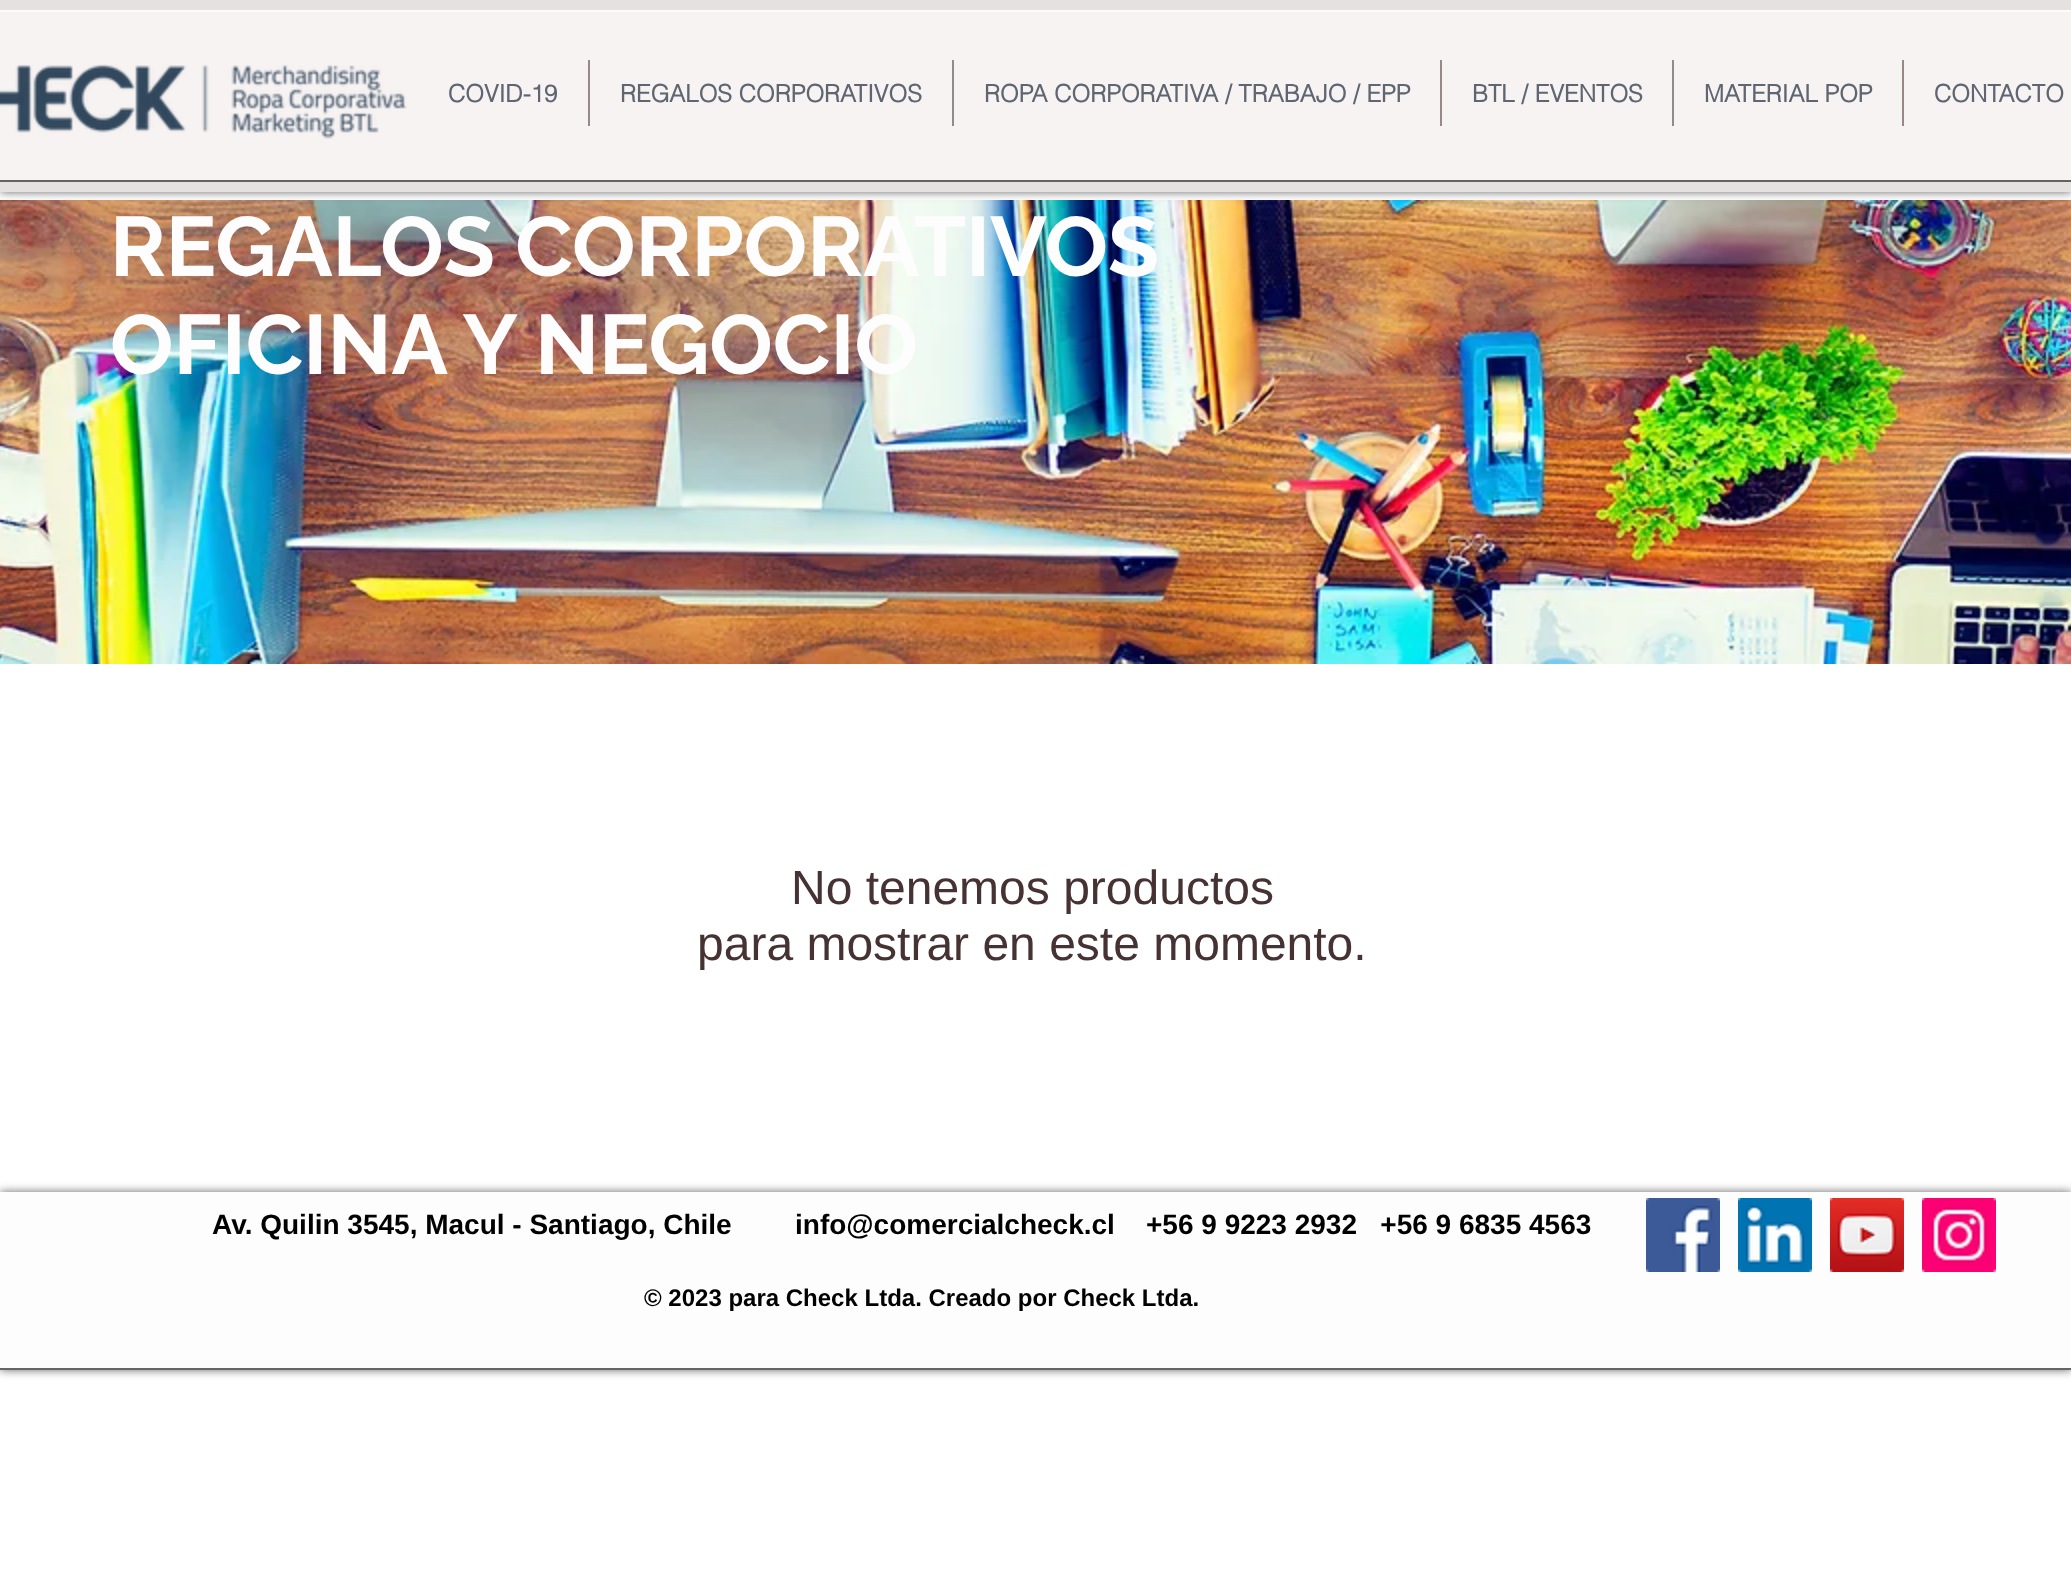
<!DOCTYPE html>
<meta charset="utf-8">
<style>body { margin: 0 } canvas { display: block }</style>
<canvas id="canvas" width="2071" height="1590"></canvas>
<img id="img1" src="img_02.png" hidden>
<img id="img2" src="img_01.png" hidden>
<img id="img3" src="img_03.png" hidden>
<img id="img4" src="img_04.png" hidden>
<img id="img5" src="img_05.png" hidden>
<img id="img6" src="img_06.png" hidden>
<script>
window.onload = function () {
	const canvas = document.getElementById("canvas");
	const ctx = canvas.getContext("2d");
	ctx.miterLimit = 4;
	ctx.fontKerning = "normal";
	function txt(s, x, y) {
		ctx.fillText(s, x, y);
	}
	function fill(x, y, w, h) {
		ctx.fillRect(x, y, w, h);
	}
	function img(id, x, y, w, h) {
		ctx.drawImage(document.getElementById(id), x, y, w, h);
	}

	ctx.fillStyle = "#FFFFFF";
	fill(0, 0, 2071, 1590);
	img("img1", 0, 200, 2071, 464);
	ctx.fillStyle = "rgba(0, 0, 0, 0.6)";
	ctx.filter = "blur(5px)";
	ctx.beginPath();
	ctx.rect(0, 0, 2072, 192);
	ctx.fill();
	ctx.filter = "none";
	ctx.fillStyle = "#F7F3F3";
	fill(0, 12, 2071, 168);
	ctx.fillStyle = "#636161";
	fill(0, 180, 2071, 2);
	ctx.fillStyle = "#FCFAFA";
	fill(0, 10, 2071, 2);
	ctx.fillStyle = "#E6E1E1";
	fill(0, 0, 2071, 10);
	fill(0, 182, 2071, 10);
	img("img2", 0, 64, 407, 75);
	ctx.fillStyle = "#968989";
	fill(588, 60, 2, 66);
	fill(952, 60, 2, 66);
	fill(1440, 60, 2, 66);
	fill(1672, 60, 2, 66);
	fill(1902, 60, 2, 66);
	ctx.fillStyle = "rgba(0, 0, 0, 0.6)";
	ctx.filter = "blur(5px)";
	ctx.beginPath();
	ctx.rect(0, 1192, 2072, 178);
	ctx.fill();
	ctx.filter = "none";
	ctx.fillStyle = "#FEFDFD";
	fill(0, 1192, 2071, 176);
	ctx.fillStyle = "#666565";
	fill(0, 1368, 2071, 2);
	img("img3", 1646, 1198, 74, 74);
	img("img4", 1738, 1198, 74, 74);
	img("img5", 1830, 1198, 74, 74);
	img("img6", 1922, 1198, 74, 74);
	ctx.font = "bold 24px helvetica";
	ctx.fillStyle = "#5F6672";
	txt("COVID-19", 448, 102);
	txt("REGALOS CORPORATIVOS", 620, 102);
	txt("ROPA CORPORATIVA / TRABAJO / EPP", 984, 102);
	txt("BTL / EVENTOS", 1472, 102);
	txt("MATERIAL POP", 1704, 102);
	txt("CONTACTO", 1934, 102);
	ctx.font = "bold 84px Raleway";
	ctx.fillStyle = "#FEFDFD";
	txt("REGALOS CORPORATIVOS", 110, 276);
	txt("OFICINA Y NEGOCIO", 110, 374);
	ctx.font = "48px Liberation Sans";
	ctx.fillStyle = "#463232";
	txt("No tenemos productos", 791, 904);
	txt("para mostrar en este momento.", 697, 960);
	ctx.font = "bold 28px Liberation Sans";
	ctx.fillStyle = "#000000";
	txt("Av. Quilin 3545, Macul - Santiago, Chile", 212, 1234);
	txt("info@comercialcheck.cl", 795, 1234);
	txt("+56 9 9223 2932   +56 9 6835 4563", 1146, 1234);
	ctx.font = "bold 24px Liberation Sans";
	txt("© 2023 para Check Ltda. Creado por Check Ltda.", 644, 1306);
};
</script>
